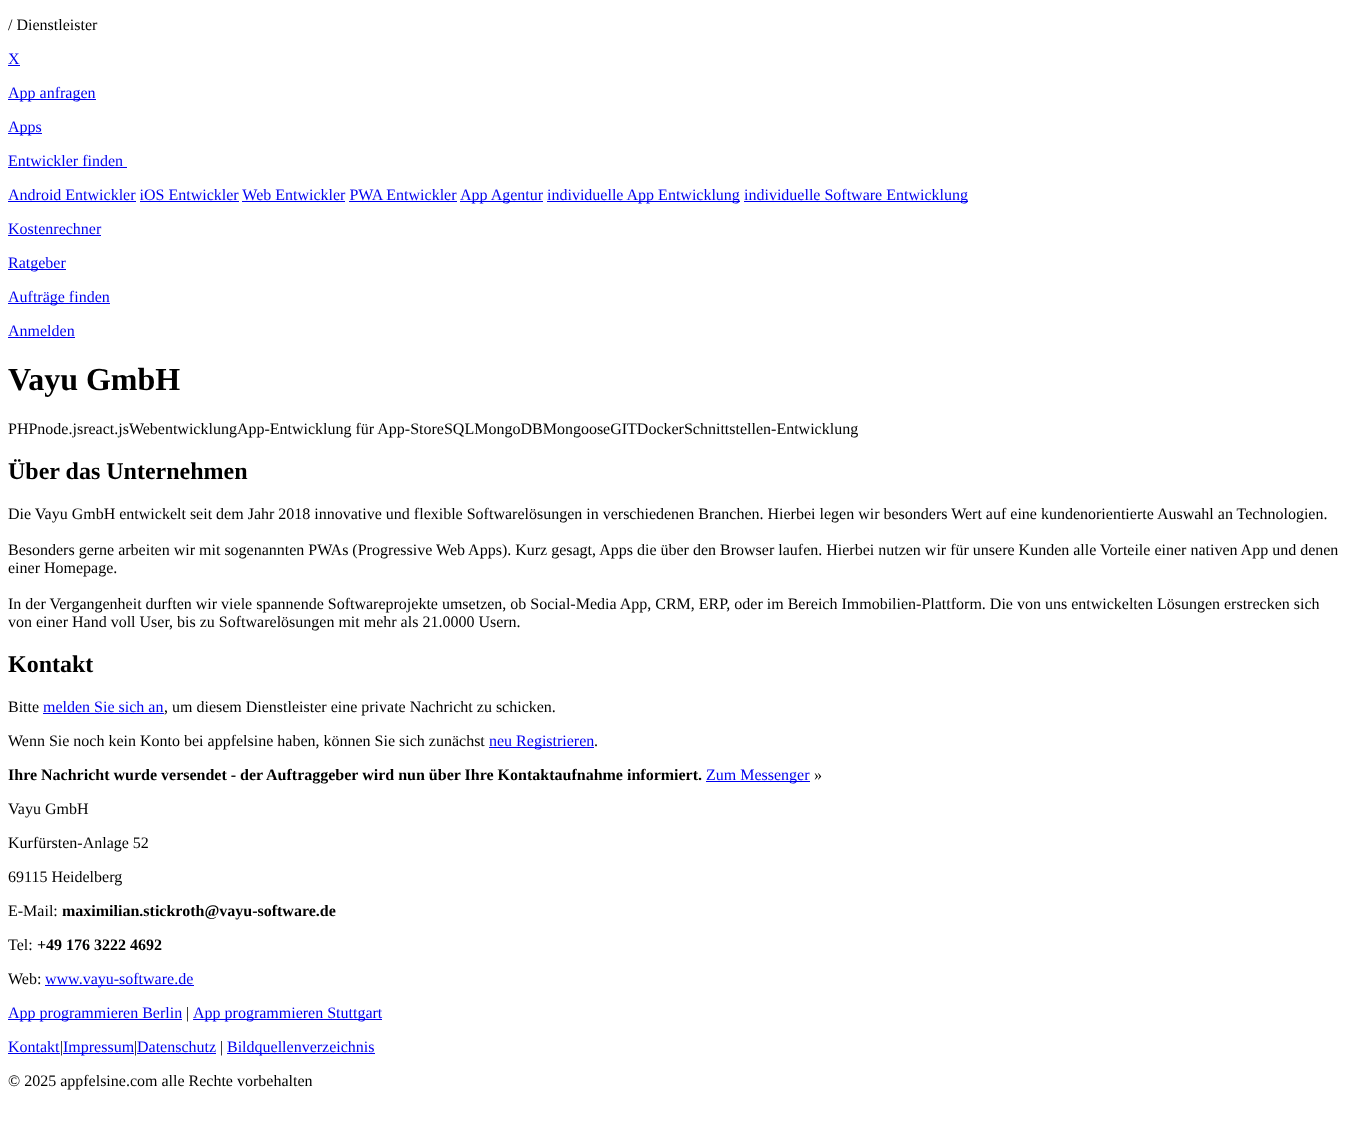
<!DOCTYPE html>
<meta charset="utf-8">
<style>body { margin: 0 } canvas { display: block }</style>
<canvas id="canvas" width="1352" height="1141"></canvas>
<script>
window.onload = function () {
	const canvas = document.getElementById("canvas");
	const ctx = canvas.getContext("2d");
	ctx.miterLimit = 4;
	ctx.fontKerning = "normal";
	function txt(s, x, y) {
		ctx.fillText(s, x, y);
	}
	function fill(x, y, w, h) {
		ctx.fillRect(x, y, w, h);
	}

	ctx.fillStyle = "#FFFFFF";
	fill(0, 0, 1352, 1141);
	ctx.fillStyle = "#0000EE";
	fill(8, 65, 12, 1);
	fill(8, 99, 88, 1);
	fill(8, 133, 34, 1);
	fill(8, 167, 119, 1);
	fill(8, 201, 128, 1);
	fill(460, 201, 83, 1);
	fill(547, 201, 193, 1);
	fill(744, 201, 224, 1);
	fill(140, 201, 99, 1);
	fill(242, 201, 103, 1);
	fill(349, 201, 108, 1);
	fill(8, 235, 93, 1);
	fill(8, 269, 58, 1);
	fill(8, 303, 102, 1);
	fill(8, 337, 67, 1);
	fill(43, 713, 121, 1);
	fill(489, 747, 105, 1);
	fill(706, 781, 104, 1);
	fill(45, 985, 149, 1);
	fill(8, 1019, 174, 1);
	fill(193, 1019, 189, 1);
	fill(8, 1053, 52, 1);
	fill(63, 1053, 71, 1);
	fill(137, 1053, 79, 1);
	fill(227, 1053, 148, 1);
	ctx.font = "16px Liberation Serif";
	ctx.fillStyle = "#000000";
	txt("/ Dienstleister", 8, 30);
	ctx.fillStyle = "#0000EE";
	txt("X", 8, 64);
	txt("App anfragen", 8, 98);
	txt("Apps", 8, 132);
	txt("Entwickler finden", 8, 166);
	txt("Android Entwickler iOS Entwickler Web Entwickler PWA Entwickler", 8, 200);
	txt("App Agentur", 460, 200);
	txt("individuelle App Entwicklung", 547, 200);
	txt("individuelle Software Entwicklung", 744, 200);
	txt("Kostenrechner", 8, 234);
	txt("Ratgeber", 8, 268);
	txt("Aufträge finden", 8, 302);
	txt("Anmelden", 8, 336);
	ctx.font = "bold 32px Liberation Serif";
	ctx.fillStyle = "#000000";
	txt("Vayu GmbH", 8, 390);
	ctx.font = "16px Liberation Serif";
	txt("PHPnode.jsreact.jsWebentwicklungApp-Entwicklung für App-StoreSQLMongoDBMongooseGITDockerSchnittstellen-Entwicklung", 8, 434);
	ctx.font = "bold 24px Liberation Serif";
	txt("Über das Unternehmen", 8, 479);
	ctx.font = "16px Liberation Serif";
	txt("Die Vayu GmbH entwickelt seit dem Jahr 2018 innovative und flexible Softwarelösungen in verschiedenen Branchen. Hierbei legen wir besonders Wert auf eine kundenorientierte Auswahl an Technologien.", 8, 519);
	txt("Besonders gerne arbeiten wir mit sogenannten PWAs (Progressive Web Apps). Kurz gesagt, Apps die über den Browser laufen. Hierbei nutzen wir für unsere Kunden alle Vorteile einer nativen App und denen", 8, 555);
	txt("einer Homepage.", 8, 573);
	txt("In der Vergangenheit durften wir viele spannende Softwareprojekte umsetzen, ob Social-Media App, CRM, ERP, oder im Bereich Immobilien-Plattform. Die von uns entwickelten Lösungen erstrecken sich", 8, 609);
	txt("von einer Hand voll User, bis zu Softwarelösungen mit mehr als 21.0000 Usern.", 8, 627);
	ctx.font = "bold 24px Liberation Serif";
	txt("Kontakt", 8, 672);
	ctx.font = "16px Liberation Serif";
	txt("Bitte", 8, 712);
	ctx.fillStyle = "#0000EE";
	txt("melden Sie sich an", 43, 712);
	ctx.fillStyle = "#000000";
	txt(", um diesem Dienstleister eine private Nachricht zu schicken.", 164, 712);
	txt("Wenn Sie noch kein Konto bei appfelsine haben, können Sie sich zunächst", 8, 746);
	ctx.fillStyle = "#0000EE";
	txt("neu Registrieren", 489, 746);
	ctx.fillStyle = "#000000";
	txt(".", 594, 746);
	ctx.font = "bold 16px Liberation Serif";
	txt("Ihre Nachricht wurde versendet - der Auftraggeber wird nun über Ihre Kontaktaufnahme informiert.", 8, 780);
	ctx.font = "16px Liberation Serif";
	ctx.fillStyle = "#0000EE";
	txt("Zum Messenger", 706, 780);
	ctx.fillStyle = "#000000";
	txt("»", 814, 780);
	txt("Vayu GmbH", 8, 814);
	txt("Kurfürsten-Anlage 52", 8, 848);
	txt("69115 Heidelberg", 8, 882);
	txt("E-Mail:", 8, 916);
	ctx.font = "bold 16px Liberation Serif";
	txt("maximilian.stickroth@vayu-software.de", 62, 916);
	ctx.font = "16px Liberation Serif";
	txt("Tel:", 8, 950);
	ctx.font = "bold 16px Liberation Serif";
	txt("+49 176 3222 4692", 37, 950);
	ctx.font = "16px Liberation Serif";
	txt("Web:", 8, 984);
	ctx.fillStyle = "#0000EE";
	txt("www.vayu-software.de", 45, 984);
	txt("App programmieren Berlin", 8, 1018);
	ctx.fillStyle = "#000000";
	txt("|", 186, 1018);
	ctx.fillStyle = "#0000EE";
	txt("App programmieren Stuttgart", 193, 1018);
	txt("Kontakt", 8, 1052);
	ctx.fillStyle = "#000000";
	txt("|", 60, 1052);
	ctx.fillStyle = "#0000EE";
	txt("Impressum", 63, 1052);
	ctx.fillStyle = "#000000";
	txt("|", 134, 1052);
	ctx.fillStyle = "#0000EE";
	txt("Datenschutz", 137, 1052);
	ctx.fillStyle = "#000000";
	txt("|", 220, 1052);
	ctx.fillStyle = "#0000EE";
	txt("Bildquellenverzeichnis", 227, 1052);
	ctx.fillStyle = "#000000";
	txt("© 2025 appfelsine.com alle Rechte vorbehalten", 8, 1086);
};
</script>
